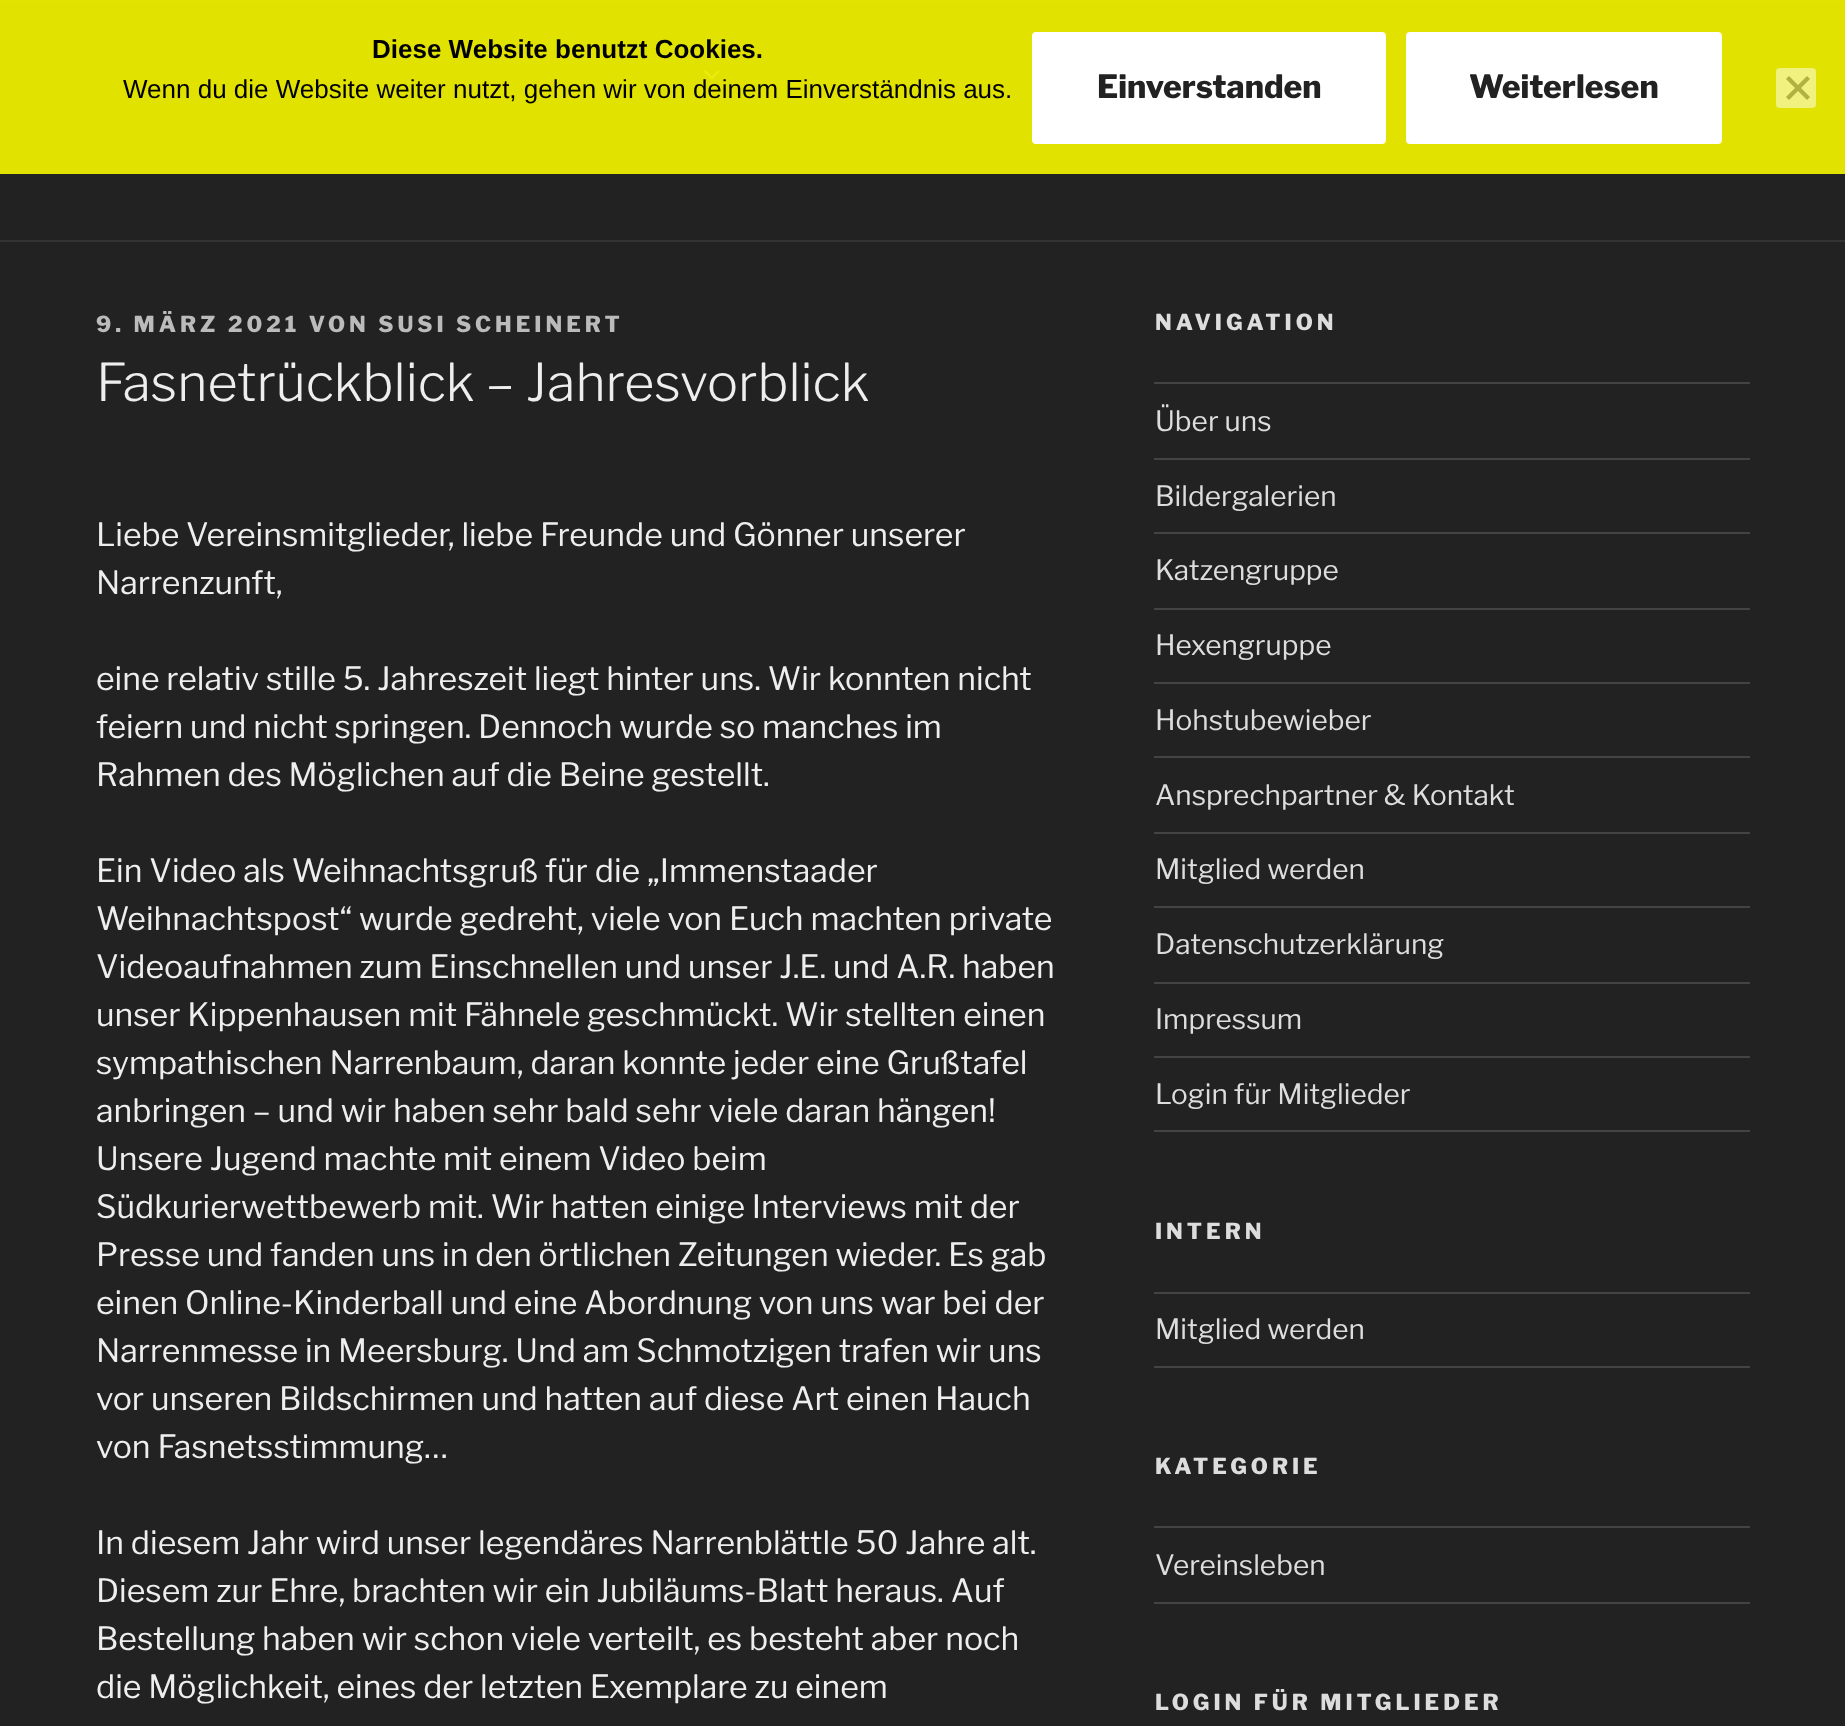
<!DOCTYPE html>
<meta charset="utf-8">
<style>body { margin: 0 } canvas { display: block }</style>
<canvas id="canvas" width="1845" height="1726"></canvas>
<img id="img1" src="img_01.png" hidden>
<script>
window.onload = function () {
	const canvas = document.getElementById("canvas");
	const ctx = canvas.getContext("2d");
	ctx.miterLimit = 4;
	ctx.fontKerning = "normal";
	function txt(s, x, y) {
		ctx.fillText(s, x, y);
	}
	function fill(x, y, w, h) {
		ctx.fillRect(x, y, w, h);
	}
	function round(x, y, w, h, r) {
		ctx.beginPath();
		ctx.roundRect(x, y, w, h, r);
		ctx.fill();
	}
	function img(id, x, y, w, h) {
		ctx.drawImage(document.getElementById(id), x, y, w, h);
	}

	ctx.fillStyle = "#222222";
	fill(0, 0, 1845, 1726);
	ctx.fillStyle = "#333333";
	fill(0, 0, 1845, 2);
	img("img1", 704, 70, 16, 10);
	ctx.fillStyle = "rgba(237, 237, 0, 0.95)";
	fill(0, 0, 1845, 174);
	ctx.fillStyle = "#FFFFFF";
	round(1032, 32, 354, 112, 4);
	round(1406, 32, 316, 112, 4);
	ctx.fillStyle = "#F1F180";
	round(1776, 68, 40, 40, 4);
	ctx.fillStyle = "#B1B141";
	ctx.beginPath();
	ctx.moveTo(1807, 76);
	ctx.lineTo(1810, 79);
	ctx.lineTo(1789, 100);
	ctx.lineTo(1786, 97);
	ctx.closePath();
	ctx.fill();
	ctx.beginPath();
	ctx.moveTo(1786, 79);
	ctx.lineTo(1789, 76);
	ctx.lineTo(1810, 97);
	ctx.lineTo(1807, 100);
	ctx.closePath();
	ctx.fill();
	ctx.fillStyle = "#333333";
	fill(0, 240, 1845, 2);
	ctx.fillStyle = "#444444";
	fill(1154, 382, 596, 2);
	fill(1154, 458, 596, 2);
	fill(1154, 532, 596, 2);
	fill(1154, 608, 596, 2);
	fill(1154, 682, 596, 2);
	fill(1154, 756, 596, 2);
	fill(1154, 832, 596, 2);
	fill(1154, 906, 596, 2);
	fill(1154, 982, 596, 2);
	fill(1154, 1056, 596, 2);
	fill(1154, 1130, 596, 2);
	fill(1154, 1292, 596, 2);
	fill(1154, 1366, 596, 2);
	fill(1154, 1526, 596, 2);
	fill(1154, 1602, 596, 2);
	ctx.font = "bold 26px Liberation Sans";
	ctx.fillStyle = "#000000";
	txt("Diese Website benutzt Cookies.", 372, 58);
	ctx.font = "26px Liberation Sans";
	txt("Wenn du die Website weiter nutzt, gehen wir von deinem Einverständnis aus.", 123, 98);
	ctx.font = "100 32px Libre Franklin";
	ctx.fillStyle = "#222222";
	txt("Einverstanden", 1097, 98);
	txt("Weiterlesen", 1469, 98);
	ctx.letterSpacing = "4px";
	ctx.font = "100 22px Libre Franklin";
	ctx.fillStyle = "#BBBBBB";
	txt("9. MÄRZ 2021 VON SUSI SCHEINERT", 96, 332);
	ctx.letterSpacing = "0px";
	ctx.font = "100 52px 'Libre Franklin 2'";
	ctx.fillStyle = "#EEEEEE";
	txt("Fasnetrückblick – Jahresvorblick", 96, 401);
	ctx.font = "100 32px 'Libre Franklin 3'";
	txt("Liebe Vereinsmitglieder, liebe Freunde und Gönner unserer", 96, 546);
	txt("Narrenzunft,", 96, 594);
	txt("eine relativ stille 5. Jahreszeit liegt hinter uns. Wir konnten nicht", 96, 690);
	txt("feiern und nicht springen. Dennoch wurde so manches im", 96, 738);
	txt("Rahmen des Möglichen auf die Beine gestellt.", 96, 786);
	txt("Ein Video als Weihnachtsgruß für die „Immenstaader", 96, 882);
	txt("Weihnachtspost“ wurde gedreht, viele von Euch machten private", 96, 930);
	txt("Videoaufnahmen zum Einschnellen und unser J.E. und A.R. haben", 96, 978);
	txt("unser Kippenhausen mit Fähnele geschmückt. Wir stellten einen", 96, 1026);
	txt("sympathischen Narrenbaum, daran konnte jeder eine Grußtafel", 96, 1074);
	txt("anbringen – und wir haben sehr bald sehr viele daran hängen!", 96, 1122);
	txt("Unsere Jugend machte mit einem Video beim", 96, 1170);
	txt("Südkurierwettbewerb mit. Wir hatten einige Interviews mit der", 96, 1218);
	txt("Presse und fanden uns in den örtlichen Zeitungen wieder. Es gab", 96, 1266);
	txt("einen Online-Kinderball und eine Abordnung von uns war bei der", 96, 1314);
	txt("Narrenmesse in Meersburg. Und am Schmotzigen trafen wir uns", 96, 1362);
	txt("vor unseren Bildschirmen und hatten auf diese Art einen Hauch", 96, 1410);
	txt("von Fasnetsstimmung…", 96, 1458);
	txt("In diesem Jahr wird unser legendäres Narrenblättle 50 Jahre alt.", 96, 1554);
	txt("Diesem zur Ehre, brachten wir ein Jubiläums-Blatt heraus. Auf", 96, 1602);
	txt("Bestellung haben wir schon viele verteilt, es besteht aber noch", 96, 1650);
	txt("die Möglichkeit, eines der letzten Exemplare zu einem", 96, 1698);
	ctx.letterSpacing = "4px";
	ctx.font = "100 22px Libre Franklin";
	ctx.fillStyle = "#DDDDDD";
	txt("NAVIGATION", 1155, 330);
	ctx.letterSpacing = "0px";
	ctx.font = "100 28px 'Libre Franklin 3'";
	txt("Über uns", 1155, 431);
	txt("Bildergalerien", 1155, 506);
	txt("Katzengruppe", 1155, 580);
	txt("Hexengruppe", 1155, 655);
	txt("Hohstubewieber", 1155, 730);
	txt("Ansprechpartner & Kontakt", 1155, 805);
	txt("Mitglied werden", 1155, 879);
	txt("Datenschutzerklärung", 1155, 954);
	txt("Impressum", 1155, 1029);
	txt("Login für Mitglieder", 1155, 1104);
	ctx.letterSpacing = "4px";
	ctx.font = "100 22px Libre Franklin";
	txt("INTERN", 1155, 1239);
	ctx.letterSpacing = "0px";
	ctx.font = "100 28px 'Libre Franklin 3'";
	txt("Mitglied werden", 1155, 1339);
	ctx.letterSpacing = "4px";
	ctx.font = "100 22px Libre Franklin";
	txt("KATEGORIE", 1155, 1474);
	ctx.letterSpacing = "0px";
	ctx.font = "100 28px 'Libre Franklin 3'";
	txt("Vereinsleben", 1155, 1575);
	ctx.letterSpacing = "4px";
	ctx.font = "100 22px Libre Franklin";
	txt("LOGIN FÜR MITGLIEDER", 1155, 1710);
};
</script>
